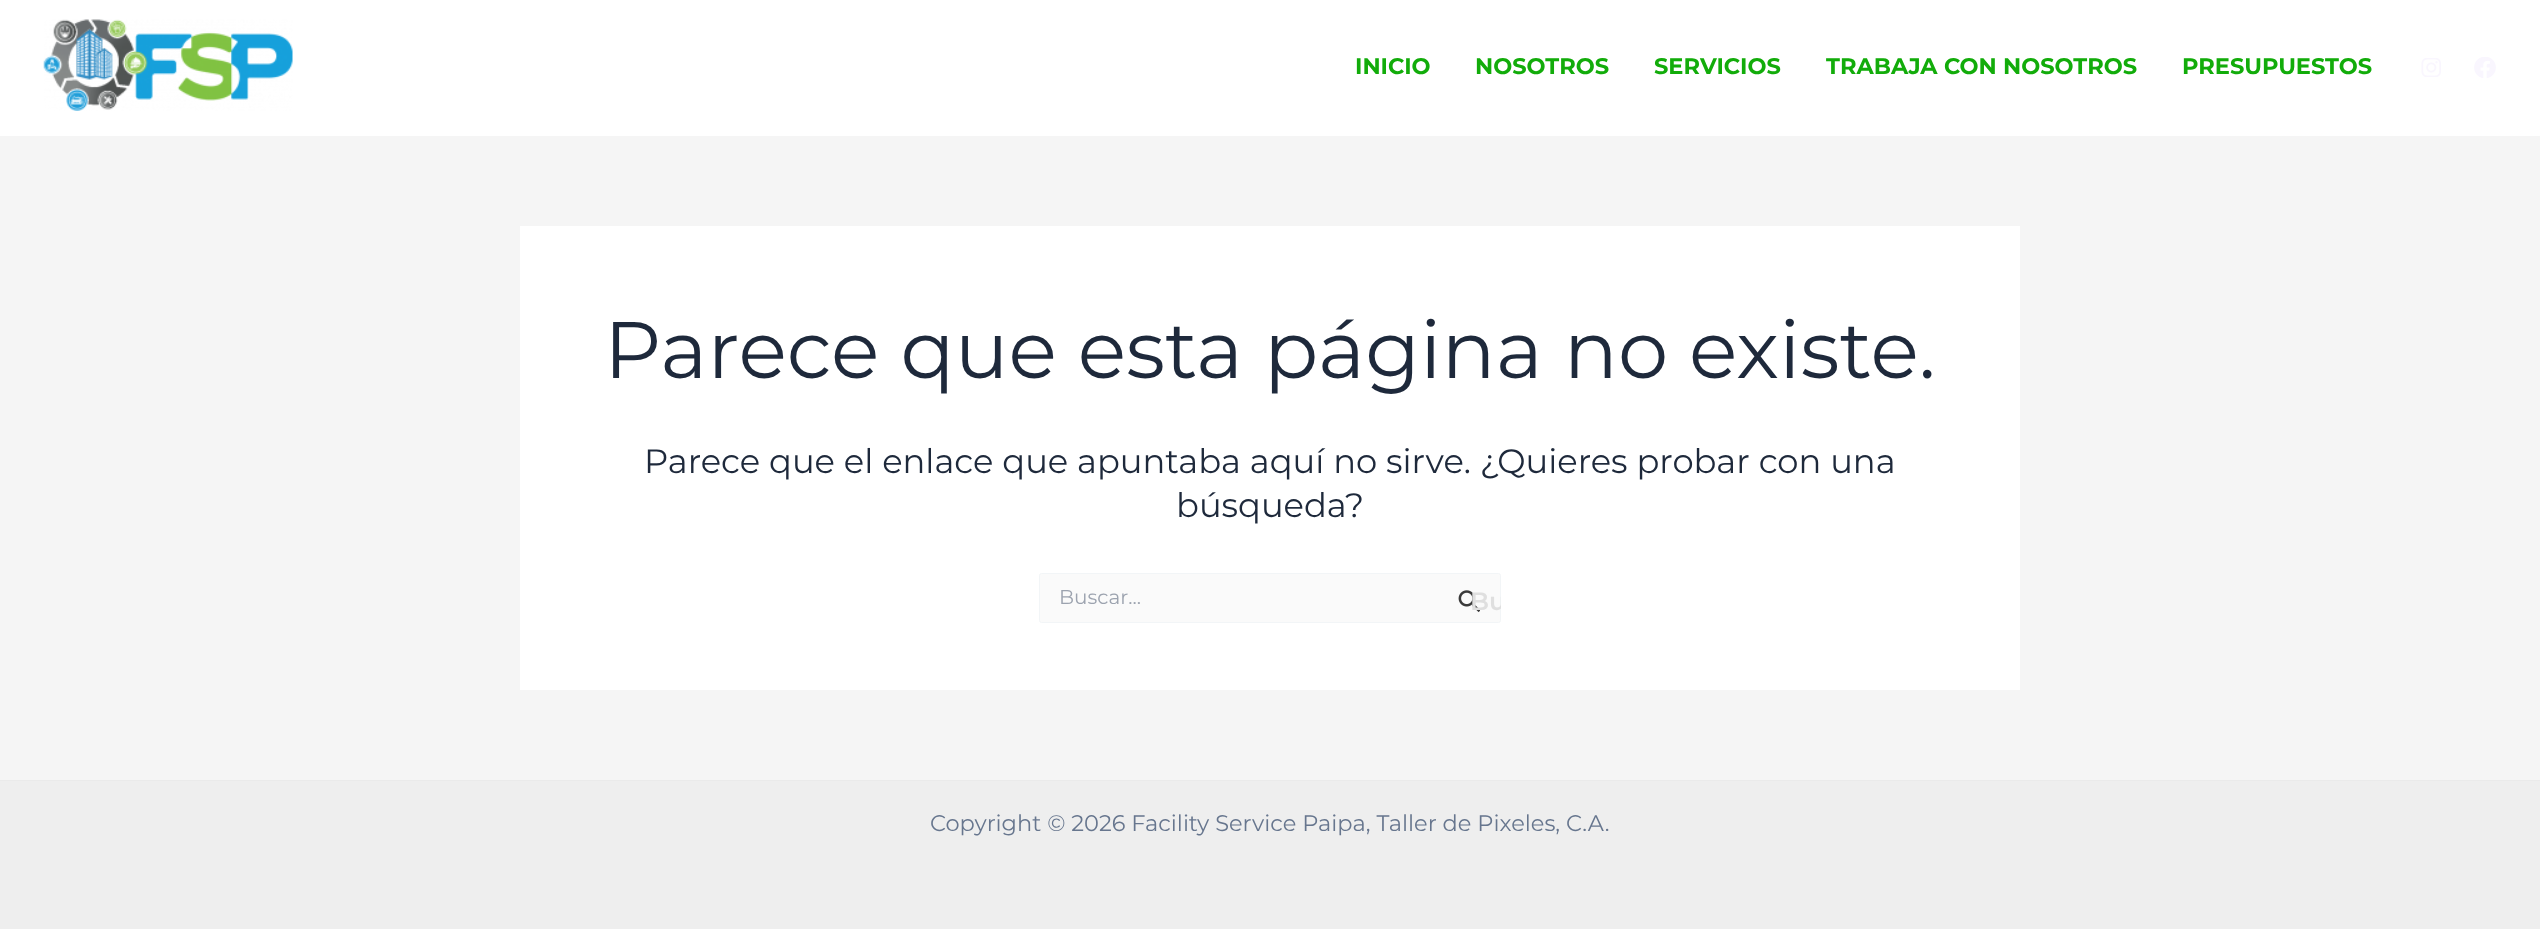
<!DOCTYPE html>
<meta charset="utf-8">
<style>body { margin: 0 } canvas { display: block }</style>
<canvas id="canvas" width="2540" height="929"></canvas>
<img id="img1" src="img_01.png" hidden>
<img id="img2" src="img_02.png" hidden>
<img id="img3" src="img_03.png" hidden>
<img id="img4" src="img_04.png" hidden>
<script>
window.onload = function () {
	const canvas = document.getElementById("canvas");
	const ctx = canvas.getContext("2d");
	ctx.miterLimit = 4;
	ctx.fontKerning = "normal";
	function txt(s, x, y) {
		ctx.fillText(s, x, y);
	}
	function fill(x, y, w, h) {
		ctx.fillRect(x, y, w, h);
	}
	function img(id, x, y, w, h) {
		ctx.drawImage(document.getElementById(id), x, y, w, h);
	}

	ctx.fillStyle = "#F5F5F5";
	fill(0, 0, 2540, 929);
	ctx.fillStyle = "#FFFFFF";
	fill(0, 0, 2540, 136);
	img("img1", 43, 19, 250, 92);
	img("img2", 2421, 58, 20, 19);
	img("img3", 2474, 57, 22, 21);
	fill(520, 226, 1500, 464);
	ctx.fillStyle = "#FAFAFA";
	ctx.beginPath();
	ctx.roundRect(1039.5, 573.5, 461, 49, 2);
	ctx.fill();
	ctx.strokeStyle = "#F2F5F7";
	ctx.stroke();
	img("img4", 1458, 590, 22, 23);
	ctx.fillStyle = "#EEEEEE";
	fill(0, 781, 2540, 148);
	ctx.fillStyle = "#EAEAEA";
	fill(0, 780, 2540, 1);
	ctx.font = "bold 22.5px Montserrat";
	ctx.fillStyle = "#12AC0A";
	txt("INICIO", 1355, 74);
	txt("NOSOTROS", 1475, 74);
	txt("SERVICIOS", 1654, 74);
	txt("TRABAJA CON NOSOTROS", 1826, 74);
	txt("PRESUPUESTOS", 2182, 74);
	ctx.font = "80px Montserrat";
	ctx.fillStyle = "#1E293B";
	txt("Parece que esta página no existe.", 604, 378);
	ctx.font = "33.75px Montserrat";
	txt("Parece que el enlace que apuntaba aquí no sirve. ¿Quieres probar con una", 644, 473);
	txt("búsqueda?", 1176, 517);
	ctx.font = "20px Montserrat";
	ctx.fillStyle = "#9CA3AF";
	txt("Buscar...", 1059, 604);
	ctx.save();
	ctx.beginPath();
	ctx.roundRect(1445, 573, 56, 57, 2.5);
	ctx.clip();
	ctx.font = "600 25px Montserrat";
	ctx.fillStyle = "#DFDFDF";
	txt("Bu", 1470, 610);
	ctx.restore();
	ctx.font = "22.5px Montserrat";
	ctx.fillStyle = "#67768E";
	txt("Copyright © 2026 Facility Service Paipa, Taller de Pixeles, C.A.", 930, 831);
};
</script>
